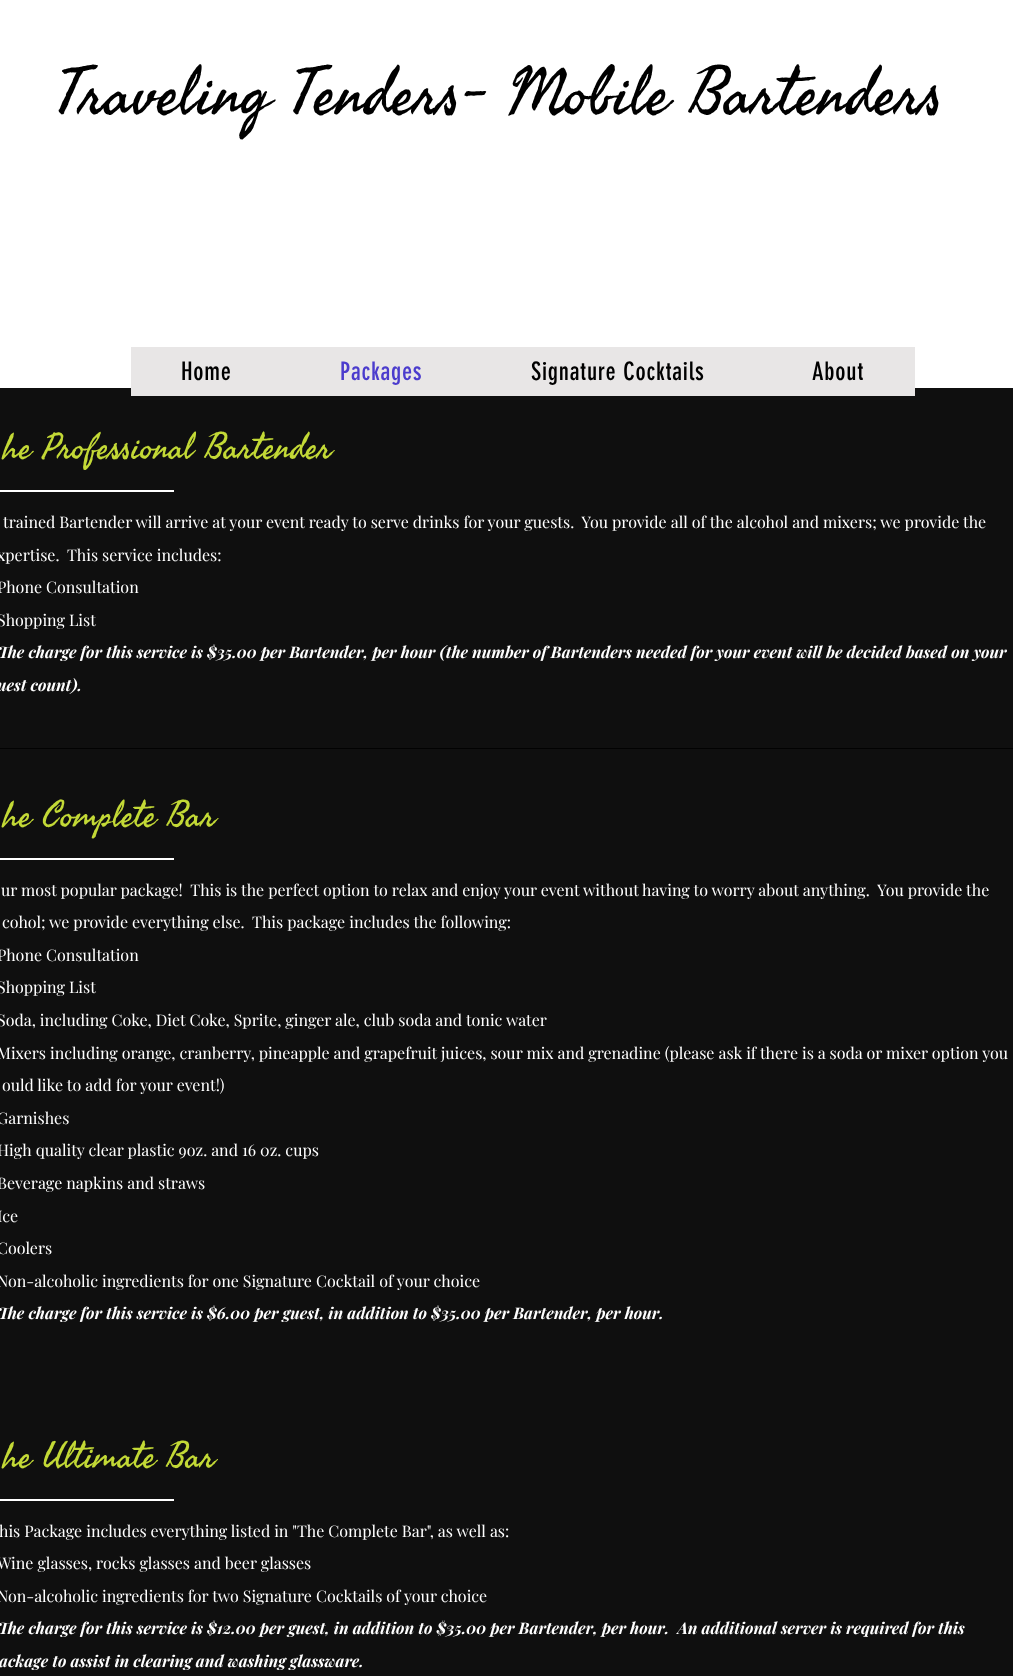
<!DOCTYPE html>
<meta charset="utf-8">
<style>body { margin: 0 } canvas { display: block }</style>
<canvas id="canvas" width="1013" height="1676"></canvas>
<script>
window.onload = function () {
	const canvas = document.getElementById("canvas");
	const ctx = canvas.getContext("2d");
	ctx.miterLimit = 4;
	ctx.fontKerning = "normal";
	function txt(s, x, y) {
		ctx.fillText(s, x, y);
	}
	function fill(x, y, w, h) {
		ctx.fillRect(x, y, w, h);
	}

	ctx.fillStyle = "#0F0F0F";
	fill(0, 0, 1013, 1676);
	ctx.fillStyle = "#FFFFFF";
	fill(0, 0, 1013, 388);
	ctx.fillStyle = "#E8E6E6";
	fill(131, 347, 784, 49);
	ctx.fillStyle = "#FFFFFF";
	fill(0, 490, 174, 2);
	ctx.fillStyle = "#020202";
	fill(0, 748, 1013, 1);
	ctx.fillStyle = "#FFFFFF";
	fill(0, 858, 174, 2);
	fill(0, 1499, 174, 2);
	ctx.font = "66px Seaweed Script";
	ctx.fillStyle = "#000000";
	txt("Traveling Tenders- Mobile Bartenders", 56, 113);
	ctx.letterSpacing = "0.75px";
	ctx.font = "25px 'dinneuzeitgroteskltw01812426'";
	txt("Home", 181, 380);
	ctx.fillStyle = "#4B3CCD";
	txt("Packages", 340, 380);
	ctx.fillStyle = "#000000";
	txt("Signature Cocktails", 531, 380);
	txt("About", 812, 380);
	ctx.letterSpacing = "0px";
	ctx.font = "36px Seaweed Script";
	ctx.fillStyle = "#C3D936";
	txt("he Professional Bartender", 3, 458);
	ctx.font = "16px Playfair Display";
	ctx.fillStyle = "#FFFFFF";
	txt("trained Bartender will arrive at your event ready to serve drinks for your guests.  You provide all of the alcohol and mixers; we provide the", 3, 528);
	txt("xpertise.  This service includes:", -3, 561);
	txt("Phone Consultation", -3, 593);
	txt("Shopping List", -3, 626);
	ctx.font = "italic bold 16px Playfair Display";
	txt("The charge for this service is $35.00 per Bartender, per hour (the number of Bartenders needed for your event will be decided based on your", -2, 658);
	txt("uest count).", -3, 691);
	ctx.font = "36px Seaweed Script";
	ctx.fillStyle = "#C3D936";
	txt("he Complete Bar", 3, 826);
	ctx.font = "16px Playfair Display";
	ctx.fillStyle = "#FFFFFF";
	txt("ur most popular package!  This is the perfect option to relax and enjoy your event without having to worry about anything.  You provide the", 1, 896);
	txt("cohol; we provide everything else.  This package includes the following:", 2, 928);
	txt("Phone Consultation", -3, 961);
	txt("Shopping List", -3, 993);
	txt("Soda, including Coke, Diet Coke, Sprite, ginger ale, club soda and tonic water", -3, 1026);
	txt("Mixers including orange, cranberry, pineapple and grapefruit juices, sour mix and grenadine (please ask if there is a soda or mixer option you", -3, 1059);
	txt("ould like to add for your event!)", 2, 1091);
	txt("Garnishes", -3, 1124);
	txt("High quality clear plastic 9oz. and 16 0z. cups", -3, 1156);
	txt("Beverage napkins and straws", -3, 1189);
	txt("Ice", -3, 1222);
	txt("Coolers", -3, 1254);
	txt("Non-alcoholic ingredients for one Signature Cocktail of your choice", -3, 1287);
	ctx.font = "italic bold 16px Playfair Display";
	txt("The charge for this service is $6.00 per guest, in addition to $35.00 per Bartender, per hour.", -2, 1319);
	ctx.font = "36px Seaweed Script";
	ctx.fillStyle = "#C3D936";
	txt("he Ultimate Bar", 3, 1467);
	ctx.font = "16px Playfair Display";
	ctx.fillStyle = "#FFFFFF";
	txt("his Package includes everything listed in \"The Complete Bar\", as well as:", -1, 1537);
	txt("Wine glasses, rocks glasses and beer glasses", -3, 1569);
	txt("Non-alcoholic ingredients for two Signature Cocktails of your choice", -3, 1602);
	ctx.font = "italic bold 16px Playfair Display";
	txt("The charge for this service is $12.00 per guest, in addition to $35.00 per Bartender, per hour.  An additional server is required for this", -2, 1634);
	txt("ackage to assist in clearing and washing glassware.", -1, 1667);
};
</script>
